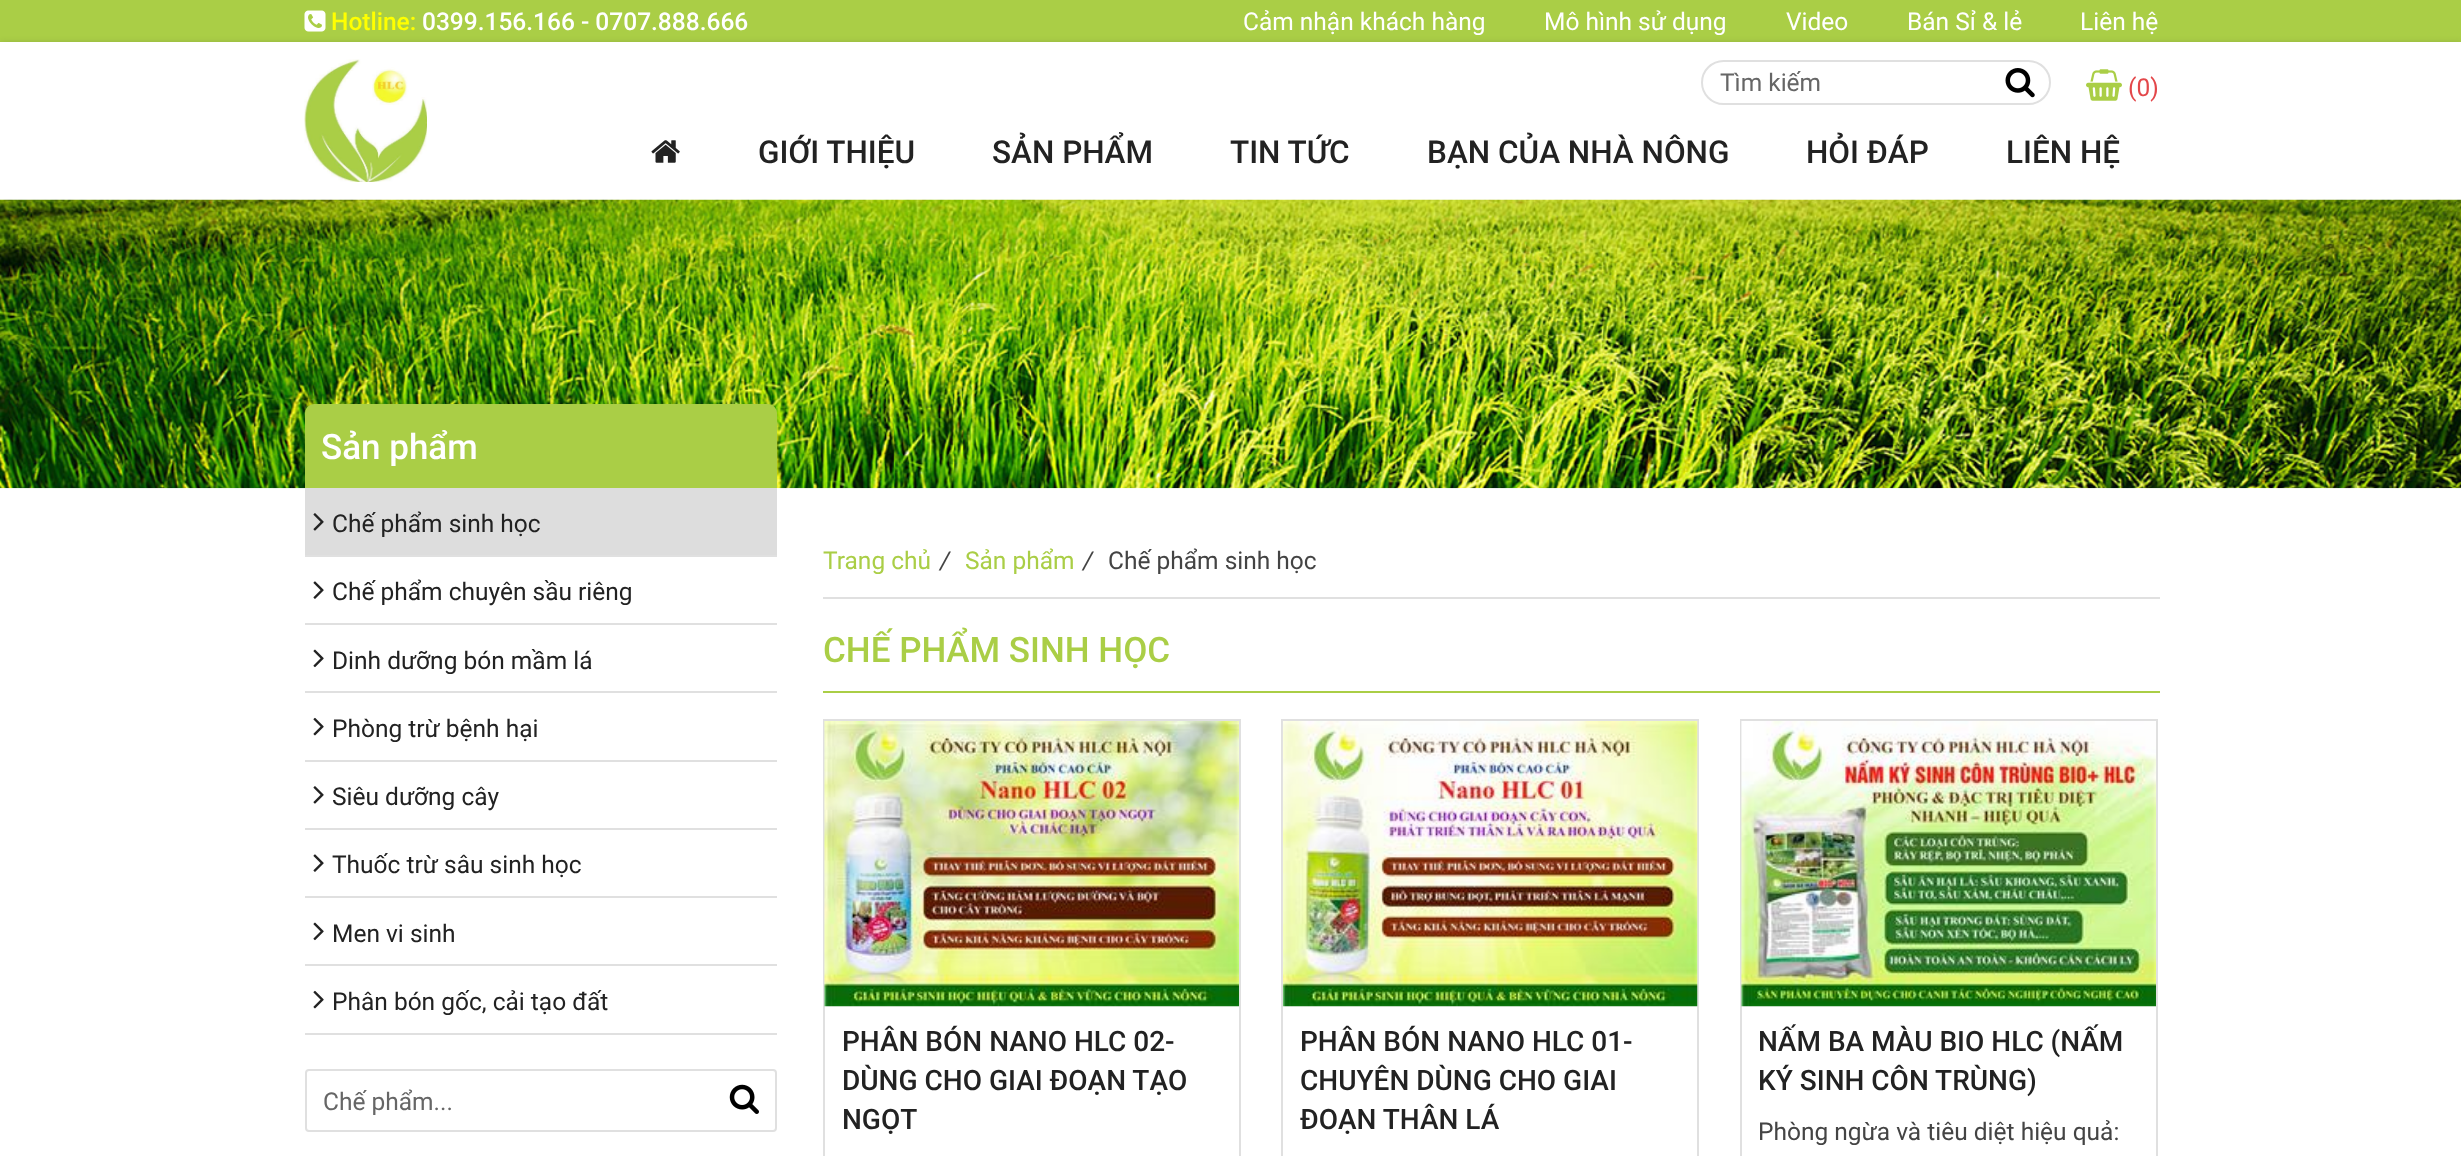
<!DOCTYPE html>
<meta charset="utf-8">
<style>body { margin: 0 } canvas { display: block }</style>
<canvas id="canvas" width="2461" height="1156"></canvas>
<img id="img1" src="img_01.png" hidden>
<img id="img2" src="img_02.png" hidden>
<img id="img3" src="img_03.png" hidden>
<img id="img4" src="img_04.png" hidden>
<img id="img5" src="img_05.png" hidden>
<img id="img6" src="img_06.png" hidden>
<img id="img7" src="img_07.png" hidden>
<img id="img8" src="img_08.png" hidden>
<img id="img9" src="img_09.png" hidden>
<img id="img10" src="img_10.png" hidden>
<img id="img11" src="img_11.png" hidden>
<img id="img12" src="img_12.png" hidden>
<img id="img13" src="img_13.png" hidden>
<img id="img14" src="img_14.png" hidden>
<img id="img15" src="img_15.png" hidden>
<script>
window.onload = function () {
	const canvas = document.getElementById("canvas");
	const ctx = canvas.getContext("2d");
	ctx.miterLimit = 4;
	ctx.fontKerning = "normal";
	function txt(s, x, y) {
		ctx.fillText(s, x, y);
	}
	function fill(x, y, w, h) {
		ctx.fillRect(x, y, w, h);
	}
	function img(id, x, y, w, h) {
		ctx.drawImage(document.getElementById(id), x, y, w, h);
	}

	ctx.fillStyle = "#FFFFFF";
	fill(0, 0, 2461, 1156);
	ctx.fillStyle = "#AACE46";
	fill(0, 0, 2461, 42);
	img("img1", 304, 10, 22, 22);
	ctx.fillStyle = "rgba(32, 33, 36, 0.28)";
	ctx.filter = "blur(3.5px)";
	ctx.beginPath();
	ctx.rect(0, 44, 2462, 157);
	ctx.fill();
	ctx.filter = "none";
	ctx.fillStyle = "#FFFFFF";
	fill(0, 42, 2461, 158);
	img("img2", 304, 59, 123, 123);
	ctx.beginPath();
	ctx.roundRect(1702, 61, 348, 43, 21.5);
	ctx.strokeStyle = "#E0E0E0";
	ctx.lineWidth = 2;
	ctx.stroke();
	img("img3", 2005, 68, 30, 30);
	img("img4", 2086, 69, 36, 32);
	img("img5", 651, 140, 29, 23);
	img("img6", 0, 199, 2461, 290);
	ctx.fillStyle = "#AACE46";
	ctx.beginPath();
	ctx.roundRect(305, 404, 472, 84, [9, 9, 0, 0]);
	ctx.fill();
	ctx.fillStyle = "#DDDDDD";
	fill(305, 488, 472, 67);
	ctx.fillStyle = "#E0E0E0";
	fill(305, 555, 472, 2);
	img("img7", 313, 513, 11, 18);
	fill(305, 623, 472, 2);
	img("img8", 313, 581, 11, 18);
	fill(305, 691, 472, 2);
	img("img9", 313, 649, 11, 19);
	fill(305, 760, 472, 2);
	img("img10", 313, 717, 11, 19);
	fill(305, 828, 472, 2);
	img("img11", 313, 786, 11, 18);
	fill(305, 896, 472, 2);
	img("img8", 313, 854, 11, 18);
	fill(305, 964, 472, 2);
	img("img9", 313, 922, 11, 19);
	fill(305, 1033, 472, 2);
	img("img10", 313, 990, 11, 19);
	ctx.beginPath();
	ctx.roundRect(306, 1070, 470, 61, 3);
	ctx.stroke();
	img("img12", 729, 1084, 30, 30);
	fill(823, 597, 1337, 2);
	ctx.fillStyle = "#AACE46";
	fill(823, 691, 1337, 2);
	ctx.strokeRect(824, 720, 416, 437);
	img("img13", 824, 721, 415, 286);
	ctx.strokeRect(1282, 720, 416, 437);
	img("img14", 1282, 721, 416, 286);
	ctx.strokeRect(1741, 720, 416, 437);
	img("img15", 1741, 721, 415, 286);
	ctx.font = "500 24.5px Roboto";
	ctx.fillStyle = "#FFFF00";
	txt("Hotline:", 331, 30);
	ctx.fillStyle = "#FFFFFF";
	txt("0399.156.166 - 0707.888.666", 422, 30);
	ctx.font = "24.5px Roboto";
	txt("Cảm nhận khách hàng", 1243, 30);
	txt("Mô hình sử dụng", 1544, 30);
	txt("Video", 1786, 30);
	txt("Bán Sỉ & lẻ", 1907, 30);
	txt("Liên hệ", 2080, 30);
	ctx.fillStyle = "#666666";
	txt("Tìm kiếm", 1720, 91);
	ctx.fillStyle = "#E3474A";
	txt("(0)", 2128, 96);
	ctx.font = "500 31.5px Roboto";
	ctx.fillStyle = "#222222";
	txt("GIỚI THIỆU", 758, 163);
	txt("SẢN PHẨM", 992, 163);
	txt("TIN TỨC", 1230, 163);
	txt("BẠN CỦA NHÀ NÔNG", 1427, 163);
	txt("HỎI ĐÁP", 1806, 163);
	txt("LIÊN HỆ", 2006, 163);
	ctx.font = "500 35px Roboto";
	ctx.fillStyle = "#FFFFFF";
	txt("Sản phẩm", 321, 459);
	ctx.font = "24.5px Roboto";
	ctx.fillStyle = "#222222";
	txt("Chế phẩm sinh học", 332, 532);
	txt("Chế phẩm chuyên sầu riêng", 332, 600);
	txt("Dinh dưỡng bón mầm lá", 332, 669);
	txt("Phòng trừ bệnh hại", 332, 737);
	txt("Siêu dưỡng cây", 332, 805);
	txt("Thuốc trừ sâu sinh học", 332, 873);
	txt("Men vi sinh", 332, 942);
	txt("Phân bón gốc, cải tạo đất", 332, 1010);
	ctx.fillStyle = "#666666";
	txt("Chế phẩm...", 323, 1110);
	ctx.fillStyle = "#AACE46";
	txt("Trang chủ", 823, 569);
	ctx.font = "italic 24.5px Roboto";
	ctx.fillStyle = "#444444";
	txt("/", 940, 569);
	ctx.font = "24.5px Roboto";
	ctx.fillStyle = "#AACE46";
	txt("Sản phẩm", 965, 569);
	ctx.font = "italic 24.5px Roboto";
	ctx.fillStyle = "#444444";
	txt("/", 1083, 569);
	ctx.font = "24.5px Roboto";
	txt("Chế phẩm sinh học", 1108, 569);
	ctx.font = "500 35px Roboto";
	ctx.fillStyle = "#AACE46";
	txt("CHẾ PHẨM SINH HỌC", 823, 662);
	ctx.font = "500 28px Roboto";
	ctx.fillStyle = "#222222";
	txt("PHÂN BÓN NANO HLC 02-", 842, 1051);
	txt("DÙNG CHO GIAI ĐOẠN TẠO", 842, 1090);
	txt("NGỌT", 842, 1129);
	txt("PHÂN BÓN NANO HLC 01-", 1300, 1051);
	txt("CHUYÊN DÙNG CHO GIAI", 1300, 1090);
	txt("ĐOẠN THÂN LÁ", 1300, 1129);
	txt("NẤM BA MÀU BIO HLC (NẤM", 1758, 1051);
	txt("KÝ SINH CÔN TRÙNG)", 1758, 1090);
	ctx.font = "24.5px Roboto";
	ctx.fillStyle = "#444444";
	txt("Phòng ngừa và tiêu diệt hiệu quả:", 1758, 1140);
};
</script>
